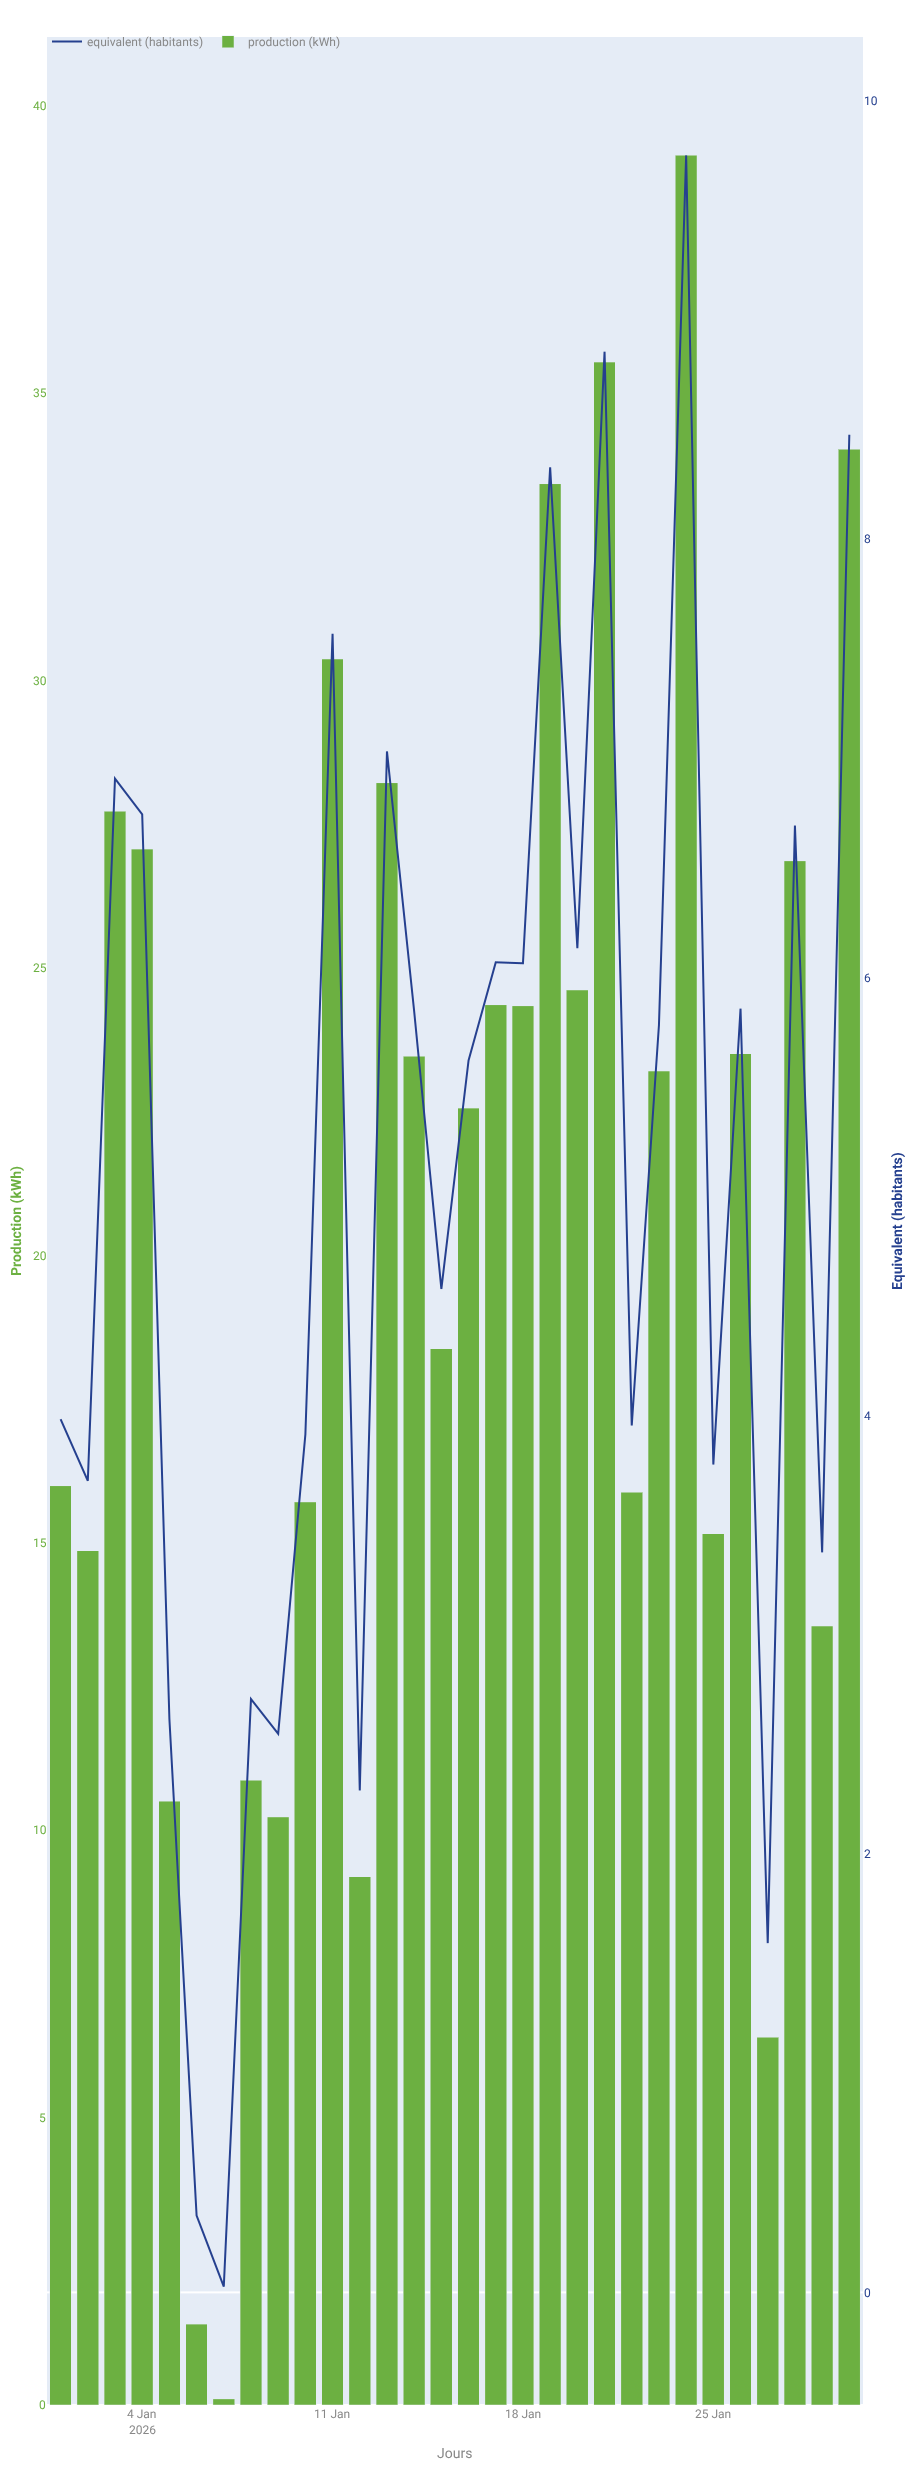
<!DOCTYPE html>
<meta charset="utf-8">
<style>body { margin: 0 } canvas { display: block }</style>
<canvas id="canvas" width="923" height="2469"></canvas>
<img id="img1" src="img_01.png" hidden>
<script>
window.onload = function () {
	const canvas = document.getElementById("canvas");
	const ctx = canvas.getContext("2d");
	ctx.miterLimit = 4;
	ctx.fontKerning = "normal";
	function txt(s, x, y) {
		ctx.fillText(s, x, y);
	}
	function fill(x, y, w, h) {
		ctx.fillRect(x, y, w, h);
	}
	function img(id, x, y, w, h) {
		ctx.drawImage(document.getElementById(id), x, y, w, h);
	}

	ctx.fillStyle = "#FFFFFF";
	fill(0, 0, 923, 2469);
	img("img1", 47, 37, 816, 2368);
	ctx.beginPath();
	ctx.moveTo(52, 41.5);
	ctx.lineTo(82, 41.5);
	ctx.strokeStyle = "#25408F";
	ctx.lineWidth = 2;
	ctx.stroke();
	ctx.fillStyle = "#6CB041";
	fill(222, 36, 12, 12);
	ctx.beginPath();
	ctx.moveTo(234, 47.5);
	ctx.lineTo(222, 47.5);
	ctx.lineTo(222, 35.5);
	ctx.lineTo(234, 35.5);
	ctx.closePath();
	ctx.strokeStyle = "#E5ECF6";
	ctx.lineWidth = 0.5;
	ctx.stroke();
	ctx.font = "12px Roboto";
	ctx.fillStyle = "#888888";
	txt("equivalent (habitants)", 87, 46);
	txt("production (kWh)", 248, 46);
	ctx.font = "bold 14px Roboto";
	ctx.fillStyle = "#6CB041";
	ctx.save();
	ctx.translate(21, 1276);
	ctx.rotate(-90 * Math.PI / 180);
	ctx.fillText("Production (kWh)", 0, 0);
	ctx.restore();
	ctx.fillStyle = "#25408F";
	ctx.save();
	ctx.translate(902, 1290);
	ctx.rotate(-90 * Math.PI / 180);
	ctx.fillText("Equivalent (habitants)", 0, 0);
	ctx.restore();
	ctx.font = "14px Roboto";
	ctx.fillStyle = "#888888";
	txt("Jours", 437, 2458);
	ctx.font = "12px Roboto";
	ctx.fillStyle = "#6CB041";
	txt("40", 33, 110);
	ctx.fillStyle = "#25408F";
	txt("10", 864, 105);
	ctx.fillStyle = "#6CB041";
	txt("35", 33, 397);
	ctx.fillStyle = "#25408F";
	txt("8", 864, 543);
	ctx.fillStyle = "#6CB041";
	txt("30", 33, 685);
	txt("25", 33, 972);
	ctx.fillStyle = "#25408F";
	txt("6", 864, 982);
	ctx.fillStyle = "#6CB041";
	txt("20", 33, 1260);
	ctx.fillStyle = "#25408F";
	txt("4", 864, 1420);
	ctx.fillStyle = "#6CB041";
	txt("15", 33, 1547);
	txt("10", 33, 1834);
	ctx.fillStyle = "#25408F";
	txt("2", 864, 1858);
	ctx.fillStyle = "#6CB041";
	txt("5", 39, 2122);
	ctx.fillStyle = "#25408F";
	txt("0", 864, 2297);
	ctx.fillStyle = "#6CB041";
	txt("0", 39, 2409);
	ctx.fillStyle = "#888888";
	txt("4 Jan", 127, 2418);
	txt("11 Jan", 314, 2418);
	txt("18 Jan", 505, 2418);
	txt("25 Jan", 695, 2418);
	txt("2026", 129, 2434);
};
</script>
